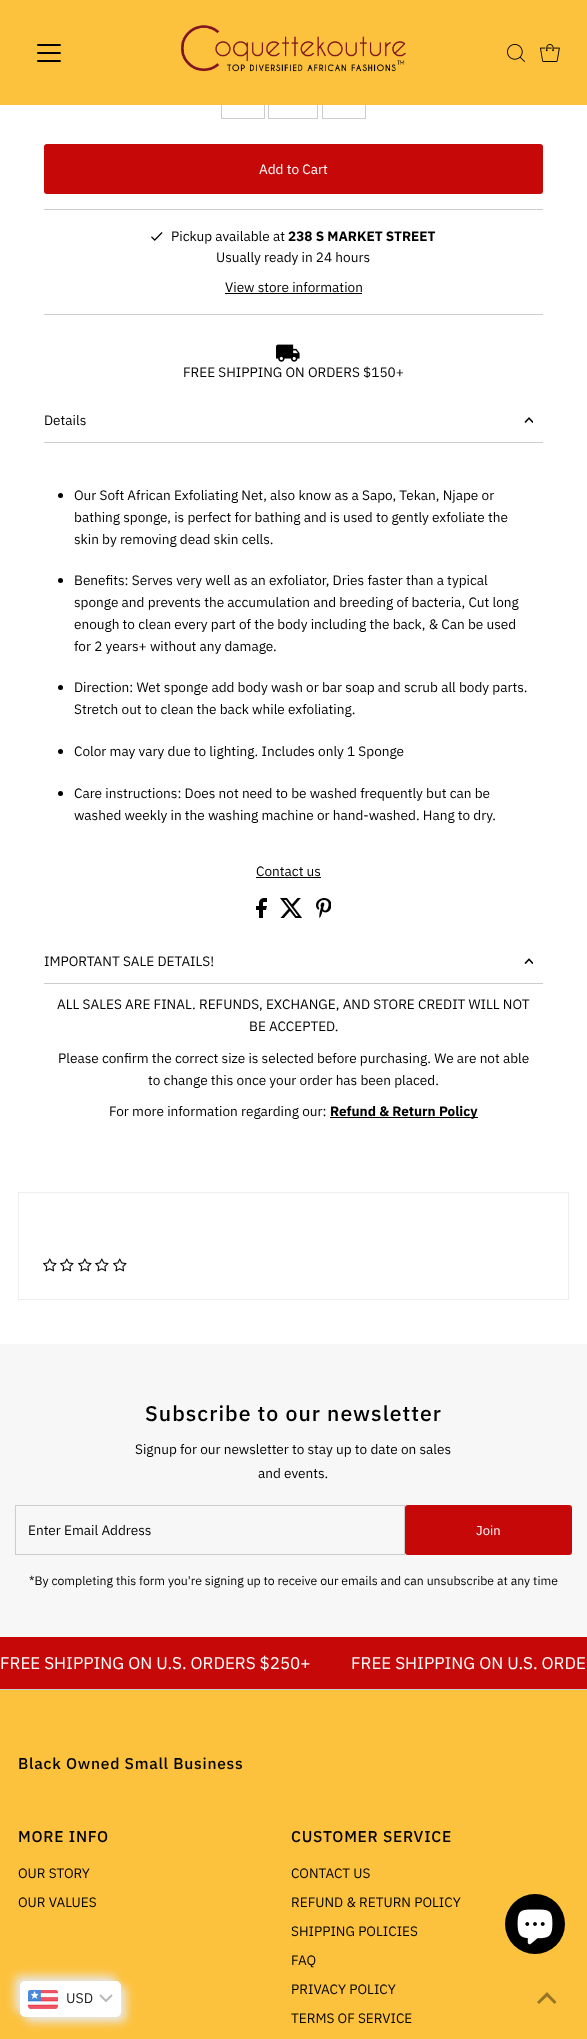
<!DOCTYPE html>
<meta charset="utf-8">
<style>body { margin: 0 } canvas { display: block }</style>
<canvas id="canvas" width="587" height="2039"></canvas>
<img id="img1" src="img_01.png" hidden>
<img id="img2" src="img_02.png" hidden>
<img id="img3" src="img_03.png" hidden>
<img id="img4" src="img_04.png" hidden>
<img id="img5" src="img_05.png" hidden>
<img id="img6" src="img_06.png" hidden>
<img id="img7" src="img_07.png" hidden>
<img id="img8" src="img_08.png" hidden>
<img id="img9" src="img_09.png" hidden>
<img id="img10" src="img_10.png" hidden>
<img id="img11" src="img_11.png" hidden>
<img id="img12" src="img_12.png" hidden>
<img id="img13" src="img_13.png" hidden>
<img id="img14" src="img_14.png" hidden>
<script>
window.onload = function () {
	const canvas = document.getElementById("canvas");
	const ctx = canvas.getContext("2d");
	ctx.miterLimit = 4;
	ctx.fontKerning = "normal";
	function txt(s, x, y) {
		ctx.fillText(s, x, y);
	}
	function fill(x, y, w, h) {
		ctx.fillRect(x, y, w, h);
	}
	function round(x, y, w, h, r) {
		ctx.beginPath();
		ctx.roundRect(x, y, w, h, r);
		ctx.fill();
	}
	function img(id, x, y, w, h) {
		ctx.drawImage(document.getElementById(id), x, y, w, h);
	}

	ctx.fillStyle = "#FFFFFF";
	fill(0, 0, 587, 2039);
	ctx.strokeStyle = "#CCCCCC";
	ctx.strokeRect(221.5, 73.5, 43, 45);
	ctx.strokeRect(268.5, 73.5, 49, 45);
	ctx.strokeRect(322.5, 73.5, 43, 45);
	ctx.fillStyle = "#FDC23D";
	fill(0, 0, 587, 105);
	img("img1", 37, 44, 24, 18);
	img("img2", 181, 25, 225, 47);
	img("img3", 507, 44, 18, 18);
	img("img4", 540, 44, 20, 18);
	ctx.fillStyle = "#C60808";
	round(44, 144, 499, 50, 3);
	ctx.fillStyle = "#CCCCCC";
	fill(44, 209, 499, 1);
	fill(44, 314, 499, 1);
	img("img5", 151, 232, 12, 9);
	ctx.fillStyle = "#000000";
	fill(225, 293, 137, 1);
	img("img6", 276, 344, 24, 18);
	ctx.fillStyle = "#CCCCCC";
	fill(44, 442, 499, 1);
	img("img7", 524, 417, 9, 6);
	ctx.fillStyle = "#000000";
	ctx.beginPath();
	ctx.arc(60.5, 495.5, 2.5, 0, Math.PI * 2);
	ctx.fill();
	ctx.beginPath();
	ctx.arc(60.5, 580.5, 2.5, 0, Math.PI * 2);
	ctx.fill();
	ctx.beginPath();
	ctx.arc(60.5, 687.5, 2.5, 0, Math.PI * 2);
	ctx.fill();
	ctx.beginPath();
	ctx.arc(60.5, 751.5, 2.5, 0, Math.PI * 2);
	ctx.fill();
	ctx.beginPath();
	ctx.arc(60.5, 793.5, 2.5, 0, Math.PI * 2);
	ctx.fill();
	fill(256, 877, 65, 1);
	img("img8", 256, 898, 11, 20);
	img("img9", 280, 898, 22, 20);
	img("img10", 316, 898, 15, 20);
	ctx.fillStyle = "#CCCCCC";
	fill(44, 983, 499, 1);
	img("img11", 524, 958, 9, 6);
	ctx.fillStyle = "#000000";
	fill(330, 1117, 148, 1);
	ctx.strokeStyle = "#EEEEEE";
	ctx.strokeRect(18.5, 1192.5, 550, 107);
	img("img12", 43, 1258, 14, 14);
	img("img12", 60, 1258, 14, 14);
	img("img12", 78, 1258, 14, 14);
	img("img12", 95, 1258, 14, 14);
	img("img12", 113, 1258, 14, 14);
	ctx.fillStyle = "#F7F7F7";
	fill(0, 1344, 587, 293);
	ctx.strokeStyle = "#CCCCCC";
	ctx.strokeRect(15.5, 1505.5, 389, 49);
	ctx.fillStyle = "#C60808";
	round(405, 1505, 167, 50, 3);
	fill(0, 1637, 587, 52);
	ctx.fillStyle = "#FDC23D";
	fill(0, 1690, 587, 349);
	ctx.fillStyle = "#CCCCCC";
	fill(0, 1689, 587, 1);
	ctx.fillStyle = "#987425";
	ctx.beginPath();
	ctx.moveTo(547, 1992);
	ctx.lineTo(537, 2002);
	ctx.lineTo(539, 2004);
	ctx.lineTo(547, 1996.5);
	ctx.lineTo(554.5, 2004);
	ctx.lineTo(556.5, 2002);
	ctx.closePath();
	ctx.fill();
	ctx.fillStyle = "#000000";
	ctx.beginPath();
	ctx.arc(535, 1924, 30, 0, Math.PI * 2);
	ctx.fill();
	img("img13", 517, 1909, 36, 36);
	ctx.fillStyle = "#E8E8E8";
	ctx.filter = "blur(5px)";
	ctx.beginPath();
	ctx.roundRect(15, 1976, 101, 36, 5);
	ctx.fill();
	ctx.filter = "none";
	ctx.filter = "blur(5px)";
	ctx.beginPath();
	ctx.roundRect(25, 1986, 101, 36, 5);
	ctx.fill();
	ctx.filter = "none";
	ctx.fillStyle = "#FFFFFF";
	round(20, 1981, 101, 36, 5);
	img("img14", 28, 1990, 30, 19);
	ctx.beginPath();
	ctx.moveTo(100.5, 1995.5);
	ctx.lineTo(106, 2001);
	ctx.lineTo(111.5, 1995.5);
	ctx.strokeStyle = "#B7B7B7";
	ctx.lineWidth = 1.8;
	ctx.lineCap = "round";
	ctx.lineJoin = "round";
	ctx.stroke();
	ctx.font = "13.6px IBM Plex Sans";
	txt("Add to Cart", 259, 174);
	ctx.fillStyle = "#000000";
	txt("Pickup available at", 171, 241);
	ctx.font = "bold 13.6px IBM Plex Sans";
	txt("238 S MARKET STREET", 288, 241);
	ctx.font = "13.6px IBM Plex Sans";
	txt("Usually ready in 24 hours", 216, 262);
	txt("View store information", 225, 292);
	txt("FREE SHIPPING ON ORDERS $150+", 183, 377);
	txt("Details", 44, 425);
	txt("Our Soft African Exfoliating Net, also know as a Sapo, Tekan, Njape or", 74, 500);
	txt("bathing sponge, is perfect for bathing and is used to gently exfoliate the", 74, 522);
	txt("skin by removing dead skin cells.", 74, 544);
	txt("Benefits: Serves very well as an exfoliator, Dries faster than a typical", 74, 585);
	txt("sponge and prevents the accumulation and breeding of bacteria, Cut long", 74, 607);
	txt("enough to clean every part of the body including the back, & Can be used", 74, 629);
	txt("for 2 years+ without any damage.", 74, 651);
	txt("Direction: Wet sponge add body wash or bar soap and scrub all body parts.", 74, 692);
	txt("Stretch out to clean the back while exfoliating.", 74, 714);
	txt("Color may vary due to lighting. Includes only 1 Sponge", 74, 756);
	txt("Care instructions: Does not need to be washed frequently but can be", 74, 798);
	txt("washed weekly in the washing machine or hand-washed. Hang to dry.", 74, 820);
	txt("Contact us", 256, 876);
	txt("IMPORTANT SALE DETAILS!", 44, 966);
	txt("ALL SALES ARE FINAL. REFUNDS, EXCHANGE, AND STORE CREDIT WILL NOT", 57, 1009);
	txt("BE ACCEPTED.", 249, 1031);
	txt("Please confirm the correct size is selected before purchasing. We are not able", 58, 1063);
	txt("to change this once your order has been placed.", 148, 1085);
	txt("For more information regarding our:", 109, 1116);
	ctx.font = "bold 13.6px IBM Plex Sans";
	txt("Refund & Return Policy", 330, 1116);
	ctx.letterSpacing = "1.05px";
	ctx.font = "500 21.25px IBM Plex Sans";
	txt("Subscribe to our newsletter", 145, 1421);
	ctx.letterSpacing = "0px";
	ctx.font = "13.6px IBM Plex Sans";
	txt("Signup for our newsletter to stay up to date on sales", 135, 1454);
	txt("and events.", 258, 1478);
	txt("Enter Email Address", 28, 1535);
	ctx.font = "13px IBM Plex Sans";
	ctx.fillStyle = "#FFFFFF";
	txt("Join", 476, 1535);
	ctx.font = "12.25px IBM Plex Sans";
	ctx.fillStyle = "#000000";
	txt("*By completing this form you're signing up to receive our emails and can unsubscribe at any time", 29, 1585);
	ctx.font = "17px IBM Plex Sans";
	ctx.fillStyle = "#FFFFFF";
	txt("FREE SHIPPING ON U.S. ORDERS $250+", 0, 1669);
	txt("FREE SHIPPING ON U.S. ORDE", 351, 1669);
	ctx.letterSpacing = "0.75px";
	ctx.font = "500 15.6px IBM Plex Sans";
	ctx.fillStyle = "#000000";
	txt("Black Owned Small Business", 18, 1769);
	txt("MORE INFO", 18, 1842);
	ctx.letterSpacing = "0px";
	ctx.font = "13.6px IBM Plex Sans";
	txt("OUR STORY", 18, 1878);
	txt("OUR VALUES", 18, 1907);
	ctx.letterSpacing = "0.75px";
	ctx.font = "500 15.6px IBM Plex Sans";
	txt("CUSTOMER SERVICE", 291, 1842);
	ctx.letterSpacing = "0px";
	ctx.font = "13.6px IBM Plex Sans";
	txt("CONTACT US", 291, 1878);
	txt("REFUND & RETURN POLICY", 291, 1907);
	txt("SHIPPING POLICIES", 291, 1936);
	txt("FAQ", 291, 1965);
	txt("PRIVACY POLICY", 291, 1994);
	txt("TERMS OF SERVICE", 291, 2023);
	ctx.font = "14px IBM Plex Sans";
	ctx.fillStyle = "#1E1E1E";
	txt("USD", 66, 2003);
};
</script>
